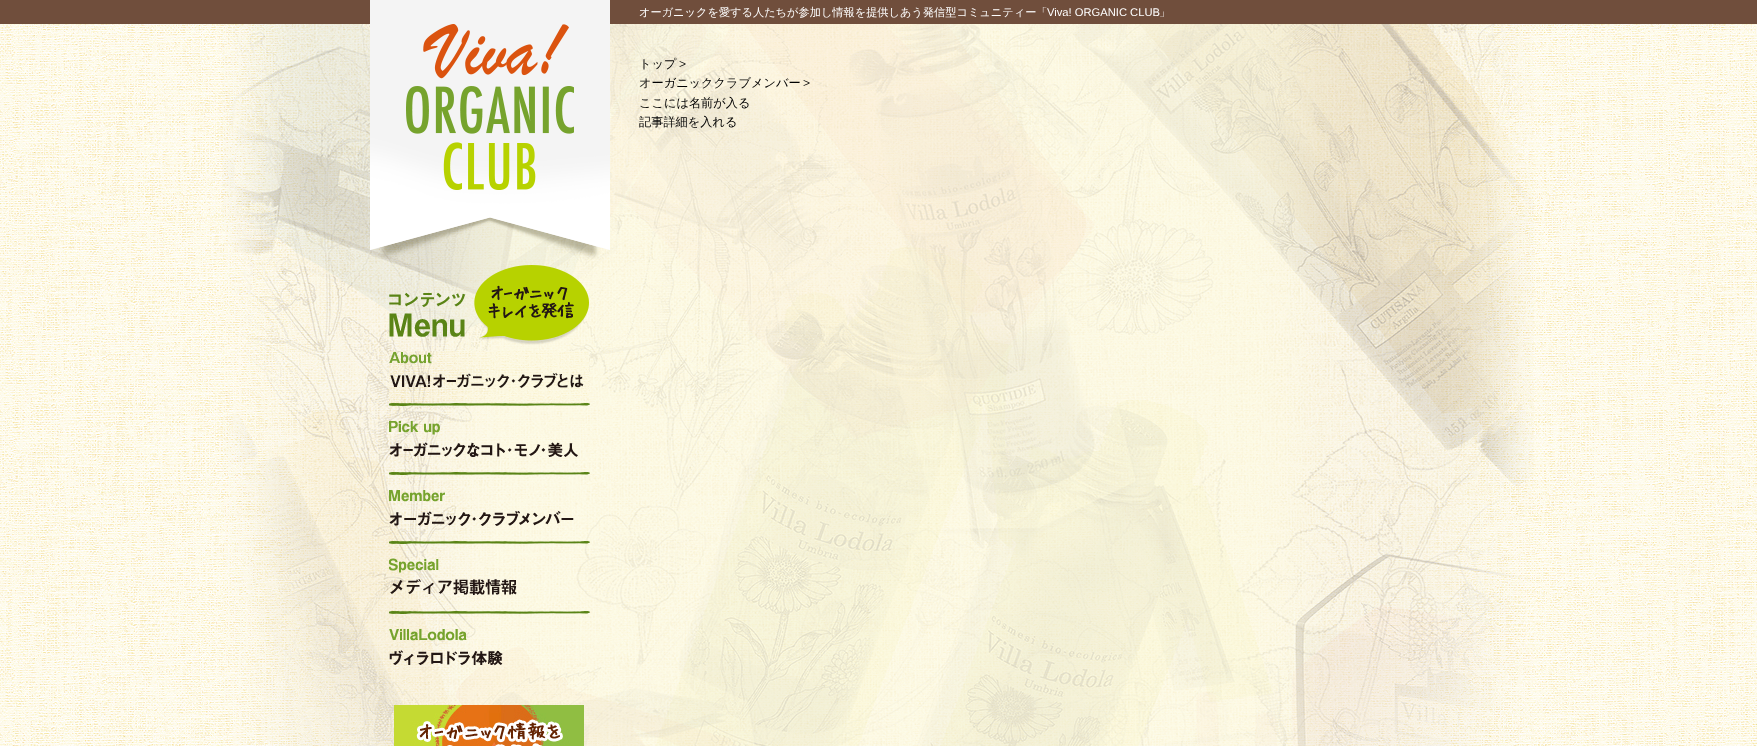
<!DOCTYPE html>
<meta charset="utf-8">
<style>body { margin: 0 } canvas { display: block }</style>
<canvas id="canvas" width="1757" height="746"></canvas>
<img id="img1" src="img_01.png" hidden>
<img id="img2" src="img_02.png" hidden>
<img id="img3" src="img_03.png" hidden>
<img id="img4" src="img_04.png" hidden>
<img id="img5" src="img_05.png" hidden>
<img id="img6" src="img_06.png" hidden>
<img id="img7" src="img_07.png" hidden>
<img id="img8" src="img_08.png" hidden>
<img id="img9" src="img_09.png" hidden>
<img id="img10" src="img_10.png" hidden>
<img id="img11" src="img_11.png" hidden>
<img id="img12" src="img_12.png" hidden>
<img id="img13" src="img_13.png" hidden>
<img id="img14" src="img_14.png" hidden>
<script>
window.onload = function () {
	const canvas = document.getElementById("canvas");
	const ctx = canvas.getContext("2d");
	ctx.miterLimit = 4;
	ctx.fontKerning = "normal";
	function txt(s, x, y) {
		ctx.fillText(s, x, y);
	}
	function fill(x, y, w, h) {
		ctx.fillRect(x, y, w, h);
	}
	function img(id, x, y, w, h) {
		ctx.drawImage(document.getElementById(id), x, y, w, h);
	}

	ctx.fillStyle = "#FFFFFF";
	fill(0, 0, 1757, 746);
	img("img1", 0, 24, 1757, 722);
	img("img2", 222, 24, 1312, 722);
	ctx.fillStyle = "#704E3C";
	fill(0, 0, 1757, 24);
	img("img3", 370, 0, 240, 259);
	img("img4", 389, 265, 200, 80);
	img("img5", 389, 351, 200, 52);
	img("img6", 389, 403, 201, 3);
	img("img7", 389, 421, 189, 36);
	img("img8", 389, 472, 201, 3);
	img("img9", 389, 490, 185, 36);
	img("img10", 389, 541, 201, 3);
	img("img11", 389, 558, 128, 37);
	img("img12", 389, 611, 201, 3);
	img("img13", 389, 629, 114, 37);
	img("img14", 394, 705, 190, 41);
	ctx.font = "500 11.2px WenQuanYi Zen Hei";
	ctx.fillStyle = "#FFFFFF";
	txt("オーガニックを愛する人たちが参加し情報を提供しあう発信型コミュニティー「", 639, 16);
	ctx.font = "11.2px Liberation Sans";
	txt("Viva! ORGANIC CLUB", 1047, 16);
	ctx.font = "500 11.2px WenQuanYi Zen Hei";
	txt("」", 1159, 16);
	ctx.font = "500 12.2px WenQuanYi Zen Hei";
	ctx.fillStyle = "#000000";
	txt("トップ", 639, 68);
	ctx.font = "12.2px Liberation Sans";
	txt(">", 679, 68);
	ctx.font = "500 12.2px WenQuanYi Zen Hei";
	txt("オーガニッククラブメンバー", 639, 87);
	ctx.font = "12.2px Liberation Sans";
	txt(">", 803, 87);
	ctx.font = "500 12.2px WenQuanYi Zen Hei";
	txt("ここには名前が入る", 639, 107);
	txt("記事詳細を入れる", 639, 126);
};
</script>
